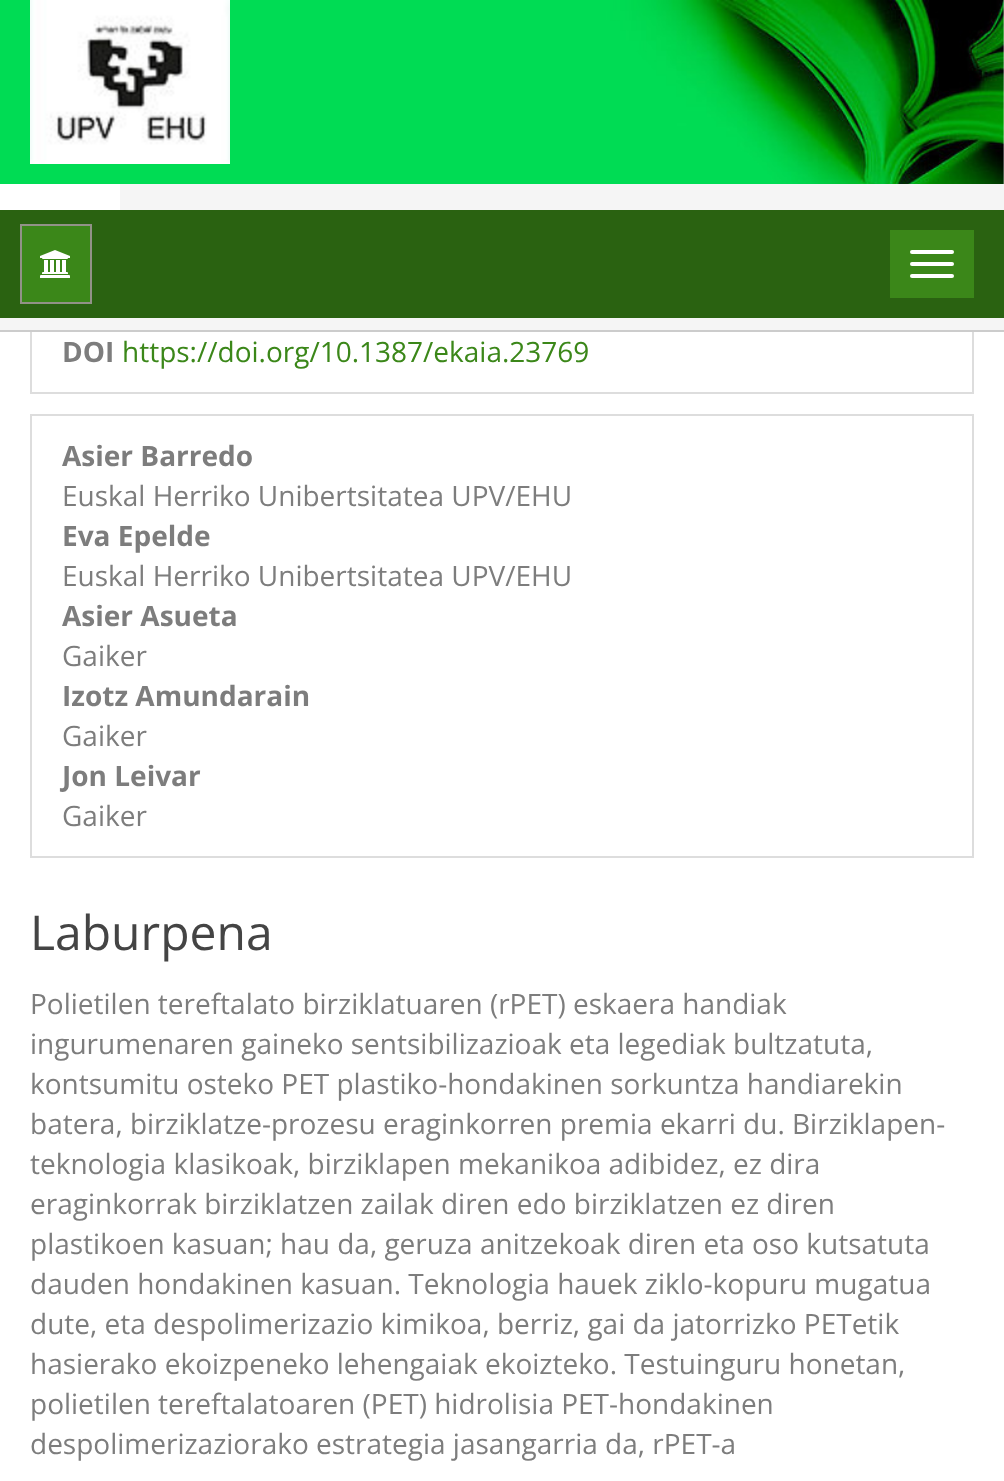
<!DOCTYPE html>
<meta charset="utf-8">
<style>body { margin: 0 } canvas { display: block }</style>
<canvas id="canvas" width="1004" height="1481"></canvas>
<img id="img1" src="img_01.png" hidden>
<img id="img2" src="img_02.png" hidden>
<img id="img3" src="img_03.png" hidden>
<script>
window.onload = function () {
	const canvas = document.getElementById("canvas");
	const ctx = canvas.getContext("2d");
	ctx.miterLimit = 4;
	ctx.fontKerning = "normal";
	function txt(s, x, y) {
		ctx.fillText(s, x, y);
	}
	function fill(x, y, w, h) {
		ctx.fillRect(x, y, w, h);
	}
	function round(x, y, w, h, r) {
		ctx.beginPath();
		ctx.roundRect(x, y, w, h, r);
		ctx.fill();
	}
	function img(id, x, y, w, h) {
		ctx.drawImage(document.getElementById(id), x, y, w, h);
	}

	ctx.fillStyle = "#FFFFFF";
	fill(0, 0, 1004, 1481);
	img("img1", 0, 0, 1004, 184);
	img("img2", 30, 0, 200, 164);
	ctx.fillStyle = "#F5F5F5";
	fill(120, 184, 884, 26);
	ctx.strokeStyle = "#DDDDDD";
	ctx.lineWidth = 2;
	ctx.strokeRect(31, 311, 942, 82);
	ctx.fillStyle = "#2A6211";
	fill(0, 210, 1004, 108);
	ctx.fillStyle = "#3B8719";
	ctx.beginPath();
	ctx.rect(21, 225, 70, 78);
	ctx.fill();
	ctx.strokeStyle = "#929288";
	ctx.stroke();
	img("img3", 40, 250, 30, 28);
	fill(890, 230, 84, 68);
	ctx.fillStyle = "#FFFFFF";
	round(910, 250, 44, 4, 2);
	round(910, 262, 44, 4, 2);
	round(910, 274, 44, 4, 2);
	ctx.fillStyle = "#F5F5F5";
	fill(0, 318, 1004, 12);
	ctx.fillStyle = "#CCCCCC";
	fill(0, 330, 1004, 2);
	ctx.strokeStyle = "#DDDDDD";
	ctx.strokeRect(31, 415, 942, 442);
	ctx.font = "bold 28px Open Sans";
	ctx.fillStyle = "#7D7D7D";
	txt("DOI", 62, 362);
	ctx.font = "28px Open Sans";
	ctx.fillStyle = "#3B8719";
	txt("https://doi.org/10.1387/ekaia.23769", 122, 362);
	ctx.font = "bold 28px Open Sans";
	ctx.fillStyle = "#7D7D7D";
	txt("Asier Barredo", 62, 466);
	ctx.font = "28px Open Sans";
	txt("Euskal Herriko Unibertsitatea UPV/EHU", 62, 506);
	ctx.font = "bold 28px Open Sans";
	txt("Eva Epelde", 62, 546);
	ctx.font = "28px Open Sans";
	txt("Euskal Herriko Unibertsitatea UPV/EHU", 62, 586);
	ctx.font = "bold 28px Open Sans";
	txt("Asier Asueta", 62, 626);
	ctx.font = "28px Open Sans";
	txt("Gaiker", 62, 666);
	ctx.font = "bold 28px Open Sans";
	txt("Izotz Amundarain", 62, 706);
	ctx.font = "28px Open Sans";
	txt("Gaiker", 62, 746);
	ctx.font = "bold 28px Open Sans";
	txt("Jon Leivar", 62, 786);
	ctx.font = "28px Open Sans";
	txt("Gaiker", 62, 826);
	ctx.font = "48px Open Sans";
	ctx.fillStyle = "#444444";
	txt("Laburpena", 30, 950);
	ctx.font = "28px Open Sans";
	ctx.fillStyle = "#7D7D7D";
	txt("Polietilen tereftalato birziklatuaren (rPET) eskaera handiak", 30, 1014);
	txt("ingurumenaren gaineko sentsibilizazioak eta legediak bultzatuta,", 30, 1054);
	txt("kontsumitu osteko PET plastiko-hondakinen sorkuntza handiarekin", 30, 1094);
	txt("batera, birziklatze-prozesu eraginkorren premia ekarri du. Birziklapen-", 30, 1134);
	txt("teknologia klasikoak, birziklapen mekanikoa adibidez, ez dira", 30, 1174);
	txt("eraginkorrak birziklatzen zailak diren edo birziklatzen ez diren", 30, 1214);
	txt("plastikoen kasuan; hau da, geruza anitzekoak diren eta oso kutsatuta", 30, 1254);
	txt("dauden hondakinen kasuan. Teknologia hauek ziklo-kopuru mugatua", 30, 1294);
	txt("dute, eta despolimerizazio kimikoa, berriz, gai da jatorrizko PETetik", 30, 1334);
	txt("hasierako ekoizpeneko lehengaiak ekoizteko. Testuinguru honetan,", 30, 1374);
	txt("polietilen tereftalatoaren (PET) hidrolisia PET-hondakinen", 30, 1414);
	txt("despolimerizaziorako estrategia jasangarria da, rPET-a", 30, 1454);
};
</script>
